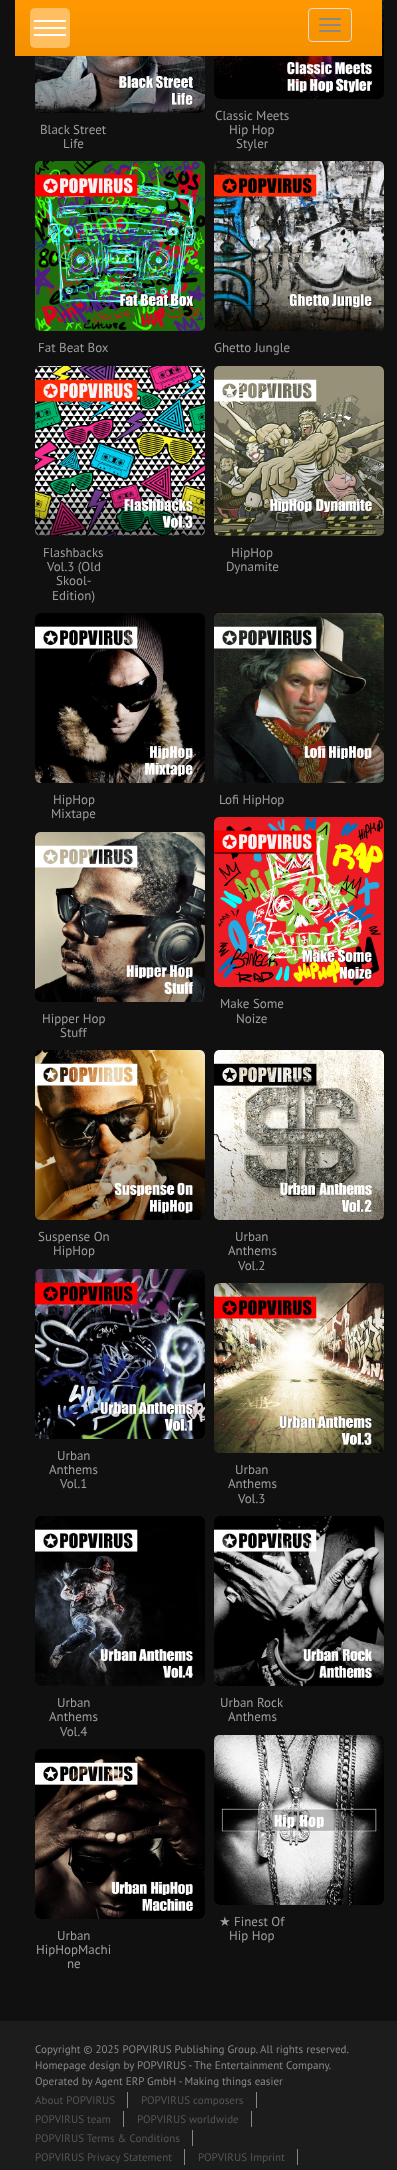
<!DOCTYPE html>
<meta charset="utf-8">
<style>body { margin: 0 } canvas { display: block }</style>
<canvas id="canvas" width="397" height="2170"></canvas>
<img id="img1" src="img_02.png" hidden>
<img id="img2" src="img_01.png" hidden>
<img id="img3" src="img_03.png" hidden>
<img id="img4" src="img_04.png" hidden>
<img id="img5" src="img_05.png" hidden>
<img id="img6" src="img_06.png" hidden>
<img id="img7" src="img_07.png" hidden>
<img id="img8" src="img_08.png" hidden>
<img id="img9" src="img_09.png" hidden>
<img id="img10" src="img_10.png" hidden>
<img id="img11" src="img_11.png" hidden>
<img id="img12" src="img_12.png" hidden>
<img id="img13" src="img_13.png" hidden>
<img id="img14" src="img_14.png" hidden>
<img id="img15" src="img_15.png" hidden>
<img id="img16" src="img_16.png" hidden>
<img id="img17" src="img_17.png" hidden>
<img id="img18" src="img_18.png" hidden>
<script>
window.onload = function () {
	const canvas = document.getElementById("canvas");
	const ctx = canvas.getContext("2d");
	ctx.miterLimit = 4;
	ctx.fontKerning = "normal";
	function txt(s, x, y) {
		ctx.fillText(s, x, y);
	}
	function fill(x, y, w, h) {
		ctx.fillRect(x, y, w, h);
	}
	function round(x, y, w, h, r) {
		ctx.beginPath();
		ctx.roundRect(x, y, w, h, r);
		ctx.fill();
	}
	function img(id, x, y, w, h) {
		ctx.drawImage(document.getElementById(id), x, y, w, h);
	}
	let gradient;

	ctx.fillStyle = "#101010";
	fill(0, 0, 397, 2170);
	ctx.fillStyle = "#252525";
	round(35, -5, 170, 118, 5);
	round(214, -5, 170, 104, 5);
	img("img1", 214, 0, 170, 99);
	gradient = ctx.createLinearGradient(199, 0, 199, 56);
	gradient.addColorStop(0, "#FF9800");
	gradient.addColorStop(1, "#F49000");
	ctx.fillStyle = gradient;
	fill(15, 0, 367, 56);
	ctx.fillStyle = "#FFBE60";
	round(30, 8, 40, 40, 5);
	ctx.fillStyle = "#FFFFFF";
	fill(34, 20, 32, 2);
	fill(34, 27, 32, 2);
	fill(34, 34, 32, 2);
	ctx.beginPath();
	ctx.roundRect(308.5, 8.5, 43, 33, 3.5);
	ctx.strokeStyle = "#DDDDDD";
	ctx.stroke();
	ctx.fillStyle = "#888888";
	round(319, 18, 22, 2, 1);
	round(319, 24, 22, 2, 1);
	round(319, 30, 22, 2, 1);
	img("img2", 35, 56, 170, 57);
	ctx.fillStyle = "#252525";
	round(35, 161, 170, 170, 5);
	img("img3", 35, 161, 170, 170);
	round(35, 366, 170, 170, 5);
	img("img4", 35, 366, 170, 170);
	round(214, 161, 170, 170, 5);
	img("img5", 214, 161, 170, 170);
	round(214, 366, 170, 170, 5);
	img("img6", 214, 366, 170, 170);
	round(35, 613, 170, 170, 5);
	img("img7", 35, 613, 170, 170);
	round(35, 832, 170, 170, 5);
	img("img8", 35, 832, 170, 170);
	round(214, 613, 170, 170, 5);
	img("img9", 214, 613, 170, 170);
	round(214, 817, 170, 170, 5);
	img("img10", 214, 817, 170, 170);
	round(35, 1050, 170, 170, 5);
	img("img11", 35, 1050, 170, 170);
	round(35, 1269, 170, 170, 5);
	img("img12", 35, 1269, 170, 170);
	round(214, 1050, 170, 170, 5);
	img("img13", 214, 1050, 170, 170);
	round(214, 1283, 170, 170, 5);
	img("img14", 214, 1283, 170, 170);
	round(35, 1516, 170, 170, 5);
	img("img15", 35, 1516, 170, 170);
	round(35, 1749, 170, 170, 5);
	img("img16", 35, 1749, 170, 170);
	round(214, 1516, 170, 170, 5);
	img("img17", 214, 1516, 170, 170);
	round(214, 1735, 170, 170, 5);
	img("img18", 214, 1735, 170, 170);
	ctx.fillStyle = "#1C1C1C";
	fill(0, 2021, 397, 149);
	ctx.fillStyle = "#888888";
	fill(127, 2092, 1, 16);
	fill(256, 2092, 1, 16);
	fill(123, 2111, 1, 16);
	fill(251, 2111, 1, 16);
	fill(192, 2130, 1, 16);
	fill(184, 2149, 1, 16);
	fill(297, 2149, 1, 16);
	ctx.font = "13px PT Sans";
	ctx.fillStyle = "#9E9E9E";
	txt("Black Street", 40, 134);
	txt("Life", 63, 148);
	txt("Classic Meets", 215, 120);
	txt("Hip Hop", 229, 134);
	txt("Styler", 236, 148);
	txt("Fat Beat Box", 38, 352);
	txt("Flashbacks", 43, 557);
	txt("Vol.3 (Old", 47, 571);
	txt("Skool-", 56, 585);
	txt("Edition)", 52, 600);
	txt("Ghetto Jungle", 214, 352);
	txt("HipHop", 231, 557);
	txt("Dynamite", 226, 571);
	txt("HipHop", 53, 804);
	txt("Mixtape", 51, 818);
	txt("Hipper Hop", 42, 1023);
	txt("Stuff", 60, 1037);
	txt("Lofi HipHop", 219, 804);
	txt("Make Some", 220, 1008);
	txt("Noize", 236, 1023);
	txt("Suspense On", 38, 1241);
	txt("HipHop", 53, 1255);
	txt("Urban", 57, 1460);
	txt("Anthems", 49, 1474);
	txt("Vol.1", 60, 1488);
	txt("Urban", 235, 1241);
	txt("Anthems", 228, 1255);
	txt("Vol.2", 238, 1270);
	txt("Urban", 235, 1474);
	txt("Anthems", 228, 1488);
	txt("Vol.3", 238, 1503);
	txt("Urban", 57, 1707);
	txt("Anthems", 49, 1721);
	txt("Vol.4", 60, 1736);
	txt("Urban", 57, 1940);
	txt("HipHopMachi", 36, 1954);
	txt("ne", 67, 1968);
	txt("Urban Rock", 220, 1707);
	txt("Anthems", 228, 1721);
	ctx.font = "13px DejaVu Sans";
	txt("★", 219, 1926);
	ctx.font = "13px PT Sans";
	txt("Finest Of", 234, 1926);
	txt("Hip Hop", 229, 1940);
	ctx.letterSpacing = "0.05px";
	ctx.font = "11px PT Sans";
	ctx.fillStyle = "#888888";
	txt("Copyright © 2025 POPVIRUS Publishing Group. All rights reserved.", 35, 2053);
	txt("Homepage design by POPVIRUS - The Entertainment Company.", 35, 2069);
	txt("Operated by Agent ERP GmbH - Making things easier", 35, 2085);
	ctx.fillStyle = "#555555";
	txt("About POPVIRUS", 35, 2104);
	txt("POPVIRUS composers", 141, 2104);
	txt("POPVIRUS team", 35, 2123);
	txt("POPVIRUS worldwide", 137, 2123);
	txt("POPVIRUS Terms & Conditions", 35, 2142);
	txt("POPVIRUS Privacy Statement", 35, 2161);
	txt("POPVIRUS Imprint", 198, 2161);
};
</script>
